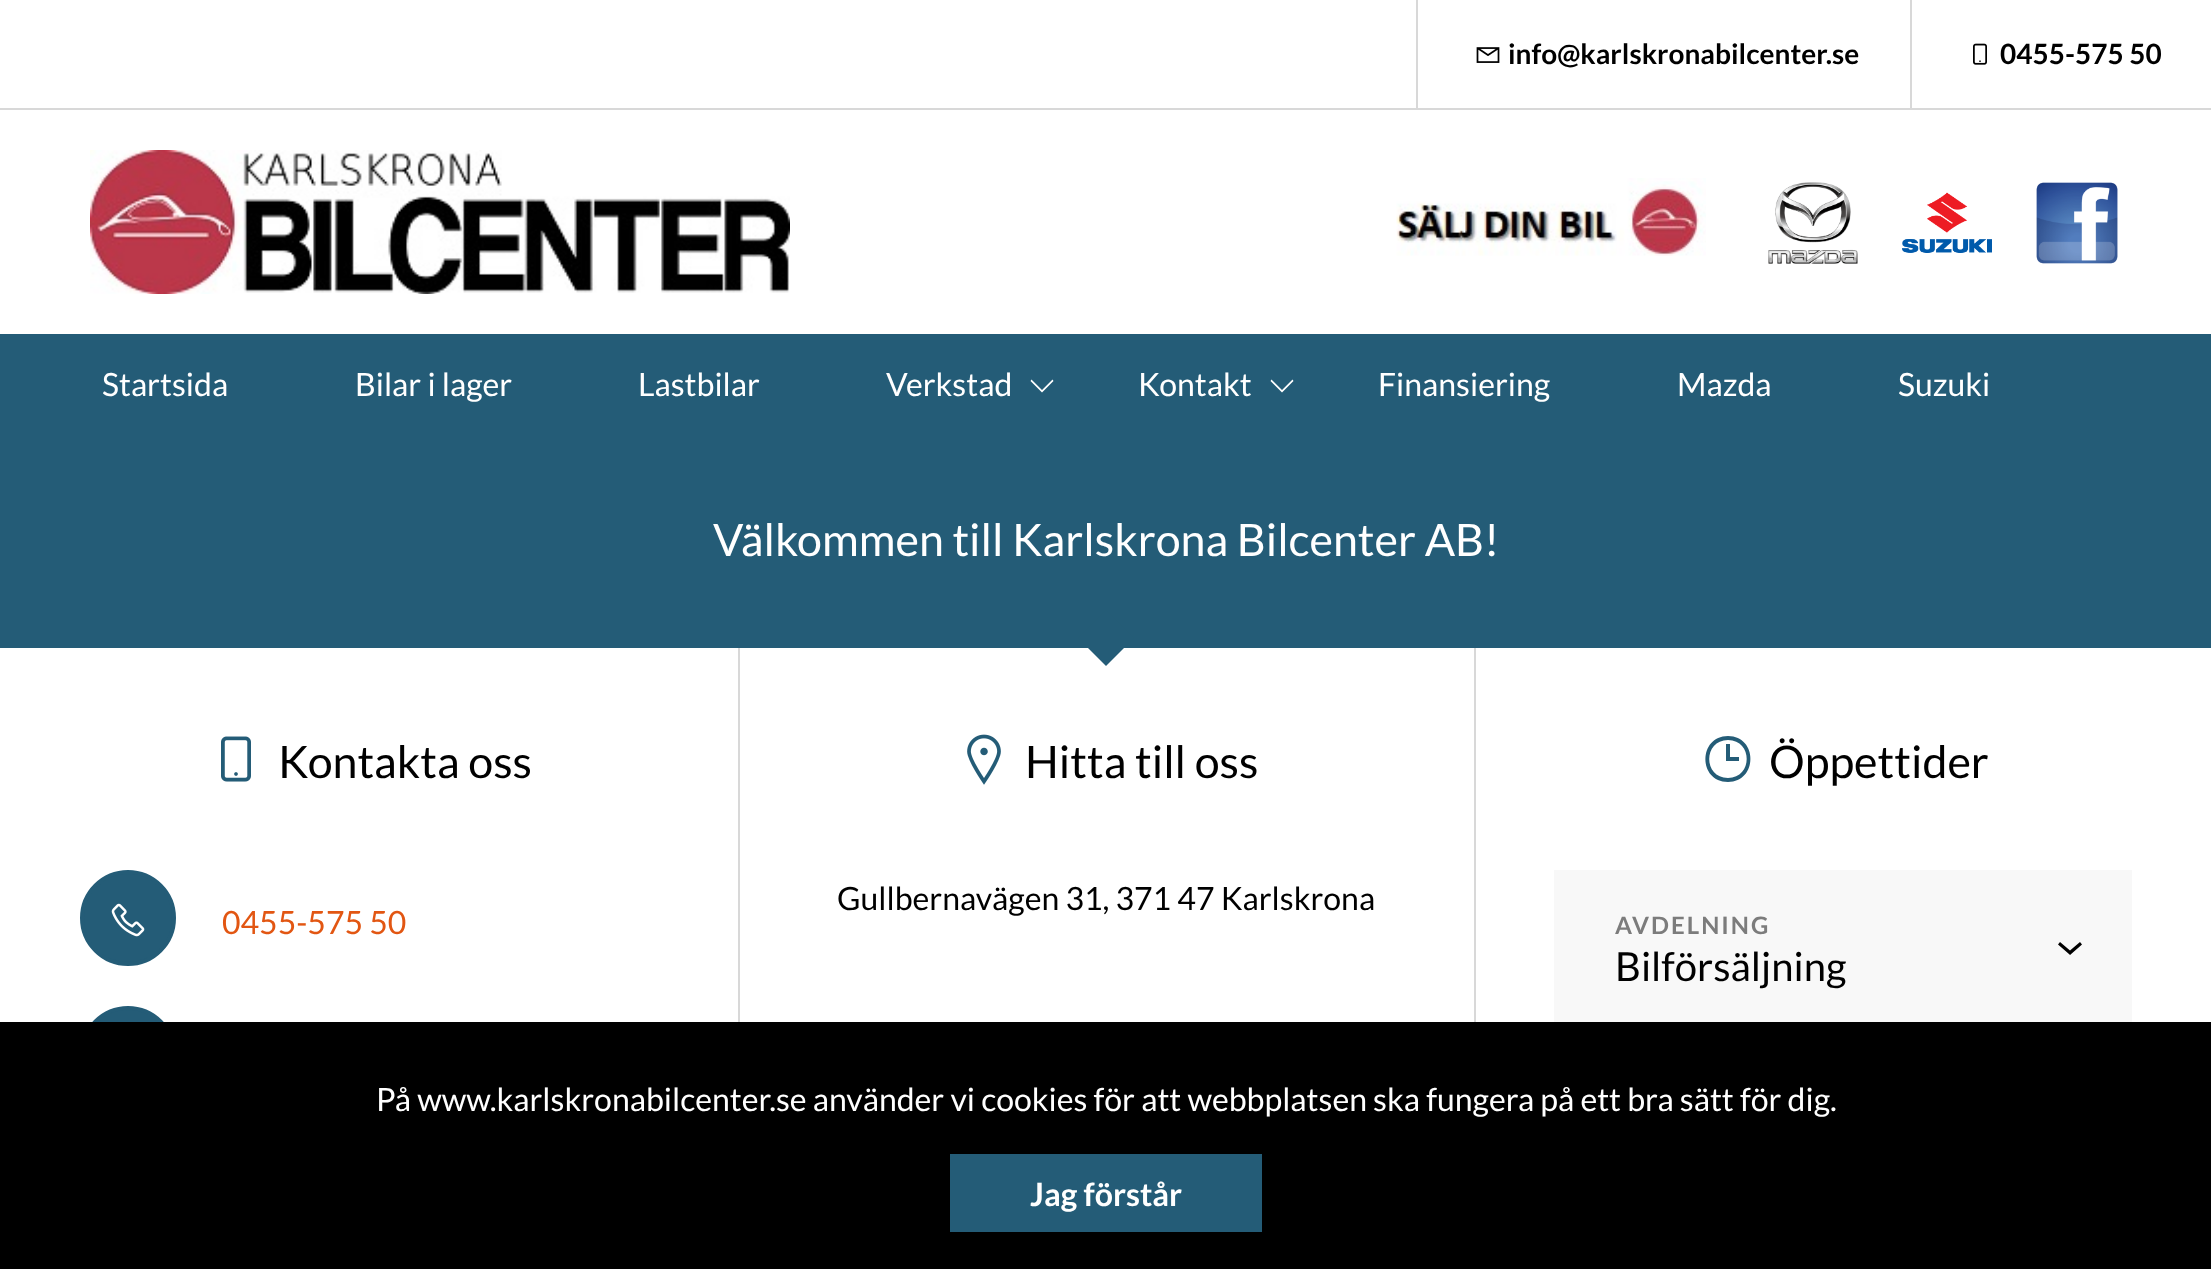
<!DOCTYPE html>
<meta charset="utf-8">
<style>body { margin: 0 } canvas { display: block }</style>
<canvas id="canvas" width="2211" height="1269"></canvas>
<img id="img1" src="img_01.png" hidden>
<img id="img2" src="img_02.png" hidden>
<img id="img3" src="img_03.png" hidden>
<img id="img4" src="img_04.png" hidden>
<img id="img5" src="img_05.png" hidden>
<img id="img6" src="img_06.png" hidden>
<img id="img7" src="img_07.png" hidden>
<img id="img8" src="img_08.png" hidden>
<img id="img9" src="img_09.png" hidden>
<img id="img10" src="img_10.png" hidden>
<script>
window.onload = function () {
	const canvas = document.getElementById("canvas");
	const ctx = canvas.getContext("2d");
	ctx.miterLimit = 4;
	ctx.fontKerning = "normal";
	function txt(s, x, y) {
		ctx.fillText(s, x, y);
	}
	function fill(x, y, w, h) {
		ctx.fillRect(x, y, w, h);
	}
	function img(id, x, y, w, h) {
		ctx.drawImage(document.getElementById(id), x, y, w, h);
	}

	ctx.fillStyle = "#FFFFFF";
	fill(0, 0, 2211, 1269);
	ctx.fillStyle = "#D8D8D8";
	fill(0, 108, 2211, 2);
	fill(1416, 0, 2, 108);
	img("img1", 1476, 47, 24, 16);
	fill(1910, 0, 2, 108);
	img("img2", 1973, 43, 14, 22);
	img("img3", 90, 150, 700, 144);
	img("img4", 1396, 178, 310, 78);
	img("img5", 1768, 182, 90, 82);
	img("img6", 1902, 192, 90, 61);
	img("img7", 2036, 182, 82, 82);
	ctx.fillStyle = "#245C77";
	fill(0, 334, 2211, 314);
	ctx.fillStyle = "#FFFFFF";
	ctx.beginPath();
	ctx.moveTo(1031.5, 379.5);
	ctx.lineTo(1042, 390);
	ctx.lineTo(1052.5, 379.5);
	ctx.lineTo(1053.5, 381);
	ctx.lineTo(1042, 392.5);
	ctx.lineTo(1030.5, 381);
	ctx.closePath();
	ctx.fill();
	ctx.beginPath();
	ctx.moveTo(1271.5, 379.5);
	ctx.lineTo(1282, 390);
	ctx.lineTo(1292.5, 379.5);
	ctx.lineTo(1293.5, 381);
	ctx.lineTo(1282, 392.5);
	ctx.lineTo(1270.5, 381);
	ctx.closePath();
	ctx.fill();
	ctx.fillStyle = "#245C77";
	ctx.beginPath();
	ctx.moveTo(1106, 666);
	ctx.lineTo(1078, 638);
	ctx.lineTo(1106, 610);
	ctx.lineTo(1134, 638);
	ctx.closePath();
	ctx.fill();
	ctx.fillStyle = "#D8D8D8";
	fill(738, 648, 2, 374);
	fill(1474, 648, 2, 374);
	img("img8", 221, 736, 30, 46);
	ctx.fillStyle = "#245C77";
	ctx.beginPath();
	ctx.arc(128, 918, 46, 0, Math.PI * 2);
	ctx.fill();
	ctx.strokeStyle = "#245C77";
	ctx.lineWidth = 4;
	ctx.stroke();
	img("img9", 111, 903, 34, 34);
	ctx.beginPath();
	ctx.arc(128, 1054, 46, 0, Math.PI * 2);
	ctx.fill();
	ctx.stroke();
	img("img10", 967, 734, 34, 51);
	ctx.beginPath();
	ctx.moveTo(1728, 736);
	ctx.bezierCurveTo(1758, 736, 1758, 782, 1728, 782);
	ctx.bezierCurveTo(1698, 782, 1698, 736, 1728, 736);
	ctx.closePath();
	ctx.moveTo(1728, 740);
	ctx.bezierCurveTo(1703, 740, 1703, 778, 1728, 778);
	ctx.bezierCurveTo(1753, 778, 1753, 740, 1728, 740);
	ctx.closePath();
	ctx.moveTo(1726, 744);
	ctx.lineTo(1730, 744);
	ctx.lineTo(1730, 757);
	ctx.lineTo(1739, 757);
	ctx.lineTo(1739, 761);
	ctx.lineTo(1726, 761);
	ctx.closePath();
	ctx.fill();
	ctx.fillStyle = "#F8F8F8";
	fill(1554, 870, 578, 152);
	ctx.fillStyle = "#000000";
	ctx.beginPath();
	ctx.moveTo(2070, 955);
	ctx.lineTo(2082, 944.5);
	ctx.lineTo(2080, 942);
	ctx.lineTo(2070, 950.5);
	ctx.lineTo(2060, 942);
	ctx.lineTo(2058, 944.5);
	ctx.lineTo(2069, 954);
	ctx.closePath();
	ctx.fill();
	fill(0, 1022, 2211, 247);
	ctx.fillStyle = "#245C77";
	fill(950, 1154, 312, 78);
	ctx.font = "bold 28px Lato";
	ctx.fillStyle = "#000000";
	txt("info@karlskronabilcenter.se", 1508, 64);
	txt("0455-575 50", 2000, 64);
	ctx.font = "32px Lato";
	ctx.fillStyle = "#FFFFFF";
	txt("Startsida", 102, 396);
	txt("Bilar i lager", 355, 396);
	txt("Lastbilar", 638, 396);
	txt("Verkstad", 886, 396);
	txt("Kontakt", 1138, 396);
	txt("Finansiering", 1378, 396);
	txt("Mazda", 1677, 396);
	txt("Suzuki", 1898, 396);
	ctx.font = "44.75px Lato";
	txt("Välkommen till Karlskrona Bilcenter AB!", 713, 556);
	ctx.fillStyle = "#000000";
	txt("Kontakta oss", 278, 778);
	ctx.font = "32px Lato";
	ctx.fillStyle = "#E25612";
	txt("0455-575 50", 222, 934);
	ctx.font = "44.75px Lato";
	ctx.fillStyle = "#000000";
	txt("Hitta till oss", 1025, 778);
	ctx.font = "32px Lato";
	txt("Gullbernavägen 31, 371 47 Karlskrona", 837, 910);
	ctx.font = "44.75px Lato";
	txt("Öppettider", 1769, 778);
	ctx.letterSpacing = "2px";
	ctx.font = "bold 24px Lato";
	ctx.fillStyle = "#7C7C7C";
	txt("AVDELNING", 1615, 934);
	ctx.letterSpacing = "0px";
	ctx.font = "40px Lato";
	ctx.fillStyle = "#000000";
	txt("Bilförsäljning", 1615, 981);
	ctx.font = "32px Lato";
	ctx.fillStyle = "#FFFFFF";
	txt("På www.karlskronabilcenter.se använder vi cookies för att webbplatsen ska fungera på ett bra sätt för dig.", 376, 1111);
	ctx.font = "bold 32px Lato";
	txt("Jag förstår", 1030, 1206);
};
</script>
